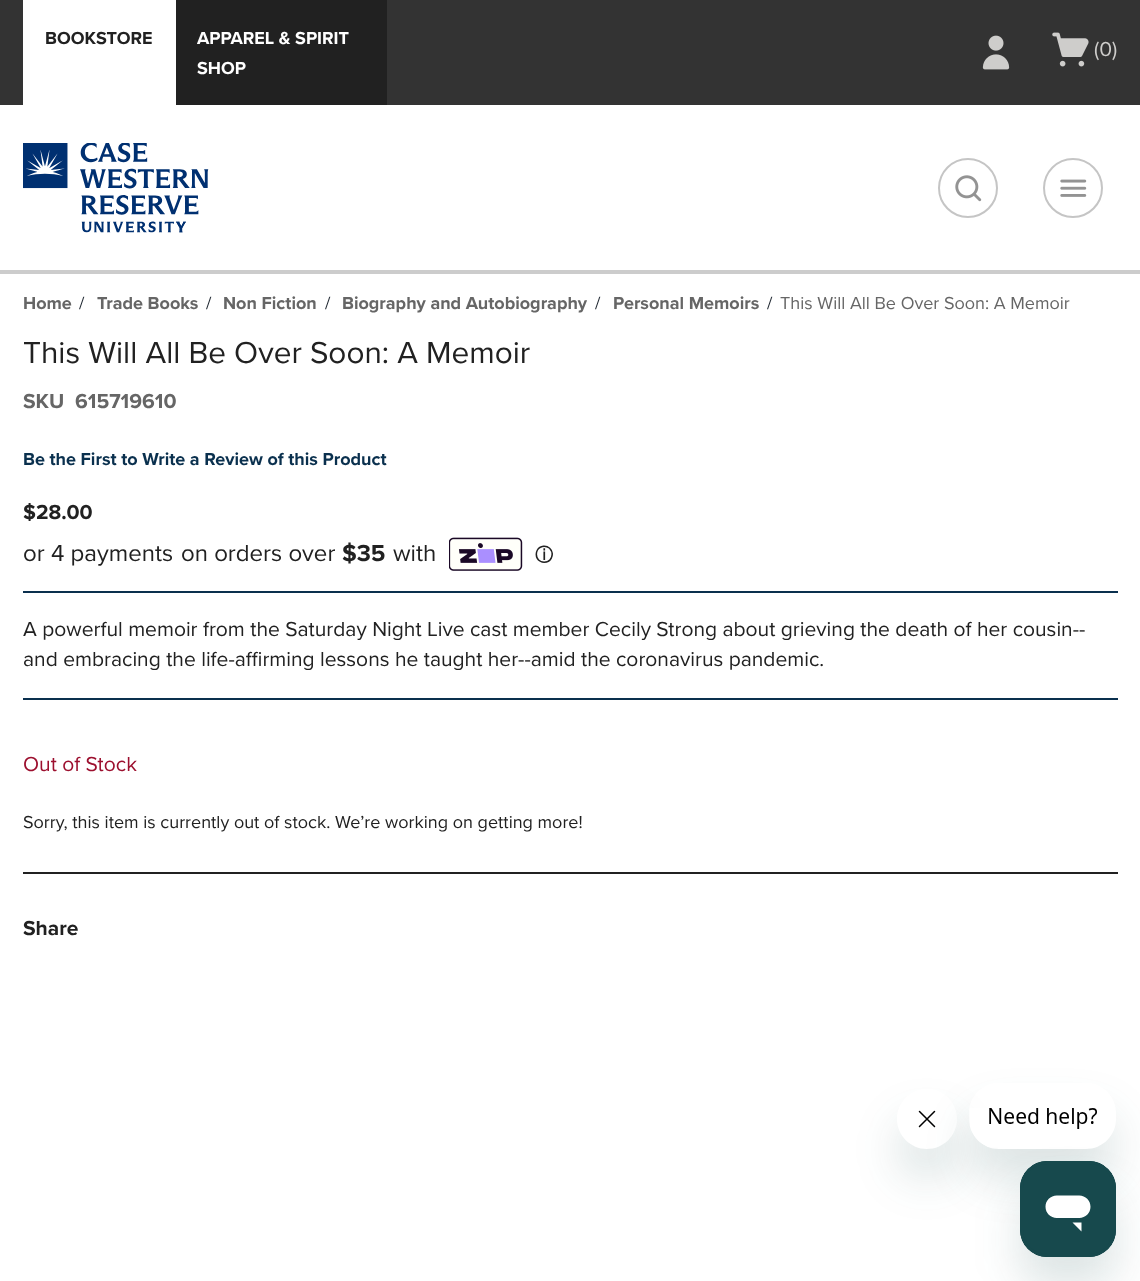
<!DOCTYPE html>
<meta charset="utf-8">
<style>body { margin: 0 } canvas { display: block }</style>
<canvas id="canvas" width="1140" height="1281"></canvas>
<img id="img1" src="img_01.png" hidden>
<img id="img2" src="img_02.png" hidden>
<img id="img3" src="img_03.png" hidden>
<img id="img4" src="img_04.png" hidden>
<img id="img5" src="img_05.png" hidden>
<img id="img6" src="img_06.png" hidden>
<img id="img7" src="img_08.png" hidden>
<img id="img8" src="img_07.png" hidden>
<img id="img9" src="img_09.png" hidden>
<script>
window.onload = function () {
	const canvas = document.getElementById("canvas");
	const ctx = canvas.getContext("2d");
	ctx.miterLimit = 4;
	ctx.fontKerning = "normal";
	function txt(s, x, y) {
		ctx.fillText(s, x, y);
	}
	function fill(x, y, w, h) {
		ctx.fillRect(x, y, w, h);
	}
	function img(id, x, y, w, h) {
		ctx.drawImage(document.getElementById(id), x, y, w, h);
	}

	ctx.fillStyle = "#FFFFFF";
	fill(0, 0, 1140, 1281);
	ctx.fillStyle = "#333333";
	fill(0, 0, 1140, 105);
	ctx.fillStyle = "#212121";
	fill(176, 0, 211, 105);
	ctx.fillStyle = "#FFFFFF";
	fill(23, 0, 153, 105);
	img("img1", 982, 35, 28, 35);
	img("img2", 1052, 32, 37, 35);
	ctx.fillStyle = "#CCCCCC";
	fill(0, 270, 1140, 4);
	img("img3", 23, 143, 186, 90);
	ctx.beginPath();
	ctx.arc(968, 188, 29, 0, Math.PI * 2);
	ctx.strokeStyle = "#C5C5C5";
	ctx.lineWidth = 2;
	ctx.stroke();
	img("img4", 955, 175, 27, 27);
	ctx.beginPath();
	ctx.arc(1073, 188, 29, 0, Math.PI * 2);
	ctx.stroke();
	img("img5", 1060, 179, 27, 18);
	img("img6", 449, 537, 74, 34);
	ctx.fillStyle = "#0A304E";
	fill(23, 591, 1095, 2);
	fill(23, 698, 1095, 2);
	ctx.fillStyle = "#212121";
	fill(23, 872, 1095, 2);
	ctx.save();
	ctx.beginPath();
	ctx.moveTo(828, 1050);
	ctx.lineTo(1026, 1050);
	ctx.lineTo(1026, 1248);
	ctx.lineTo(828, 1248);
	ctx.closePath();
	ctx.moveTo(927, 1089);
	ctx.bezierCurveTo(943.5, 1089, 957, 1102.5, 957, 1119);
	ctx.bezierCurveTo(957, 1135.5, 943.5, 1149, 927, 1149);
	ctx.bezierCurveTo(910.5, 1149, 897, 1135.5, 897, 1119);
	ctx.bezierCurveTo(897, 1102.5, 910.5, 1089, 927, 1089);
	ctx.closePath();
	ctx.clip("evenodd");
	ctx.fillStyle = "rgba(23, 73, 77, 0.15)";
	ctx.filter = "blur(22.5px)";
	ctx.beginPath();
	ctx.roundRect(897, 1119, 60, 60, 30);
	ctx.fill();
	ctx.filter = "none";
	ctx.restore();
	img("img7", 918, 1110, 18, 18);
	ctx.save();
	ctx.beginPath();
	ctx.moveTo(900, 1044);
	ctx.lineTo(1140, 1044);
	ctx.lineTo(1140, 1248);
	ctx.lineTo(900, 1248);
	ctx.closePath();
	ctx.moveTo(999, 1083);
	ctx.lineTo(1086, 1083);
	ctx.bezierCurveTo(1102.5, 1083, 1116, 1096.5, 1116, 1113);
	ctx.lineTo(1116, 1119);
	ctx.bezierCurveTo(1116, 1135.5, 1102.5, 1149, 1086, 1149);
	ctx.lineTo(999, 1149);
	ctx.bezierCurveTo(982.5, 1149, 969, 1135.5, 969, 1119);
	ctx.lineTo(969, 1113);
	ctx.bezierCurveTo(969, 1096.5, 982.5, 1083, 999, 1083);
	ctx.closePath();
	ctx.clip("evenodd");
	ctx.fillStyle = "rgba(23, 73, 77, 0.15)";
	ctx.filter = "blur(22.5px)";
	ctx.beginPath();
	ctx.roundRect(969, 1113, 147, 66, 30);
	ctx.fill();
	ctx.filter = "none";
	ctx.restore();
	img("img8", 970, 1108, 127, 39);
	ctx.fillStyle = "rgba(23, 73, 77, 0.15)";
	ctx.filter = "blur(22.5px)";
	ctx.beginPath();
	ctx.roundRect(1020, 1191, 96, 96, 27);
	ctx.fill();
	ctx.filter = "none";
	img("img9", 1020, 1161, 96, 96);
	ctx.font = "bold 18px Proxima Nova";
	ctx.fillStyle = "#212121";
	txt("BOOKSTORE", 45, 44);
	ctx.fillStyle = "#FFFFFF";
	txt("APPAREL & SPIRIT", 197, 44);
	txt("SHOP", 197, 74);
	ctx.font = "21px Proxima Nova";
	ctx.fillStyle = "#CECDCB";
	txt("(0)", 1094, 56);
	ctx.font = "bold 18px Proxima Nova";
	ctx.fillStyle = "#666666";
	txt("Home", 23, 309);
	ctx.font = "18px Proxima Nova";
	ctx.fillStyle = "#19212B";
	txt("/", 79, 309);
	ctx.font = "bold 18px Proxima Nova";
	ctx.fillStyle = "#666666";
	txt("Trade Books", 97, 309);
	ctx.font = "18px Proxima Nova";
	ctx.fillStyle = "#19212B";
	txt("/", 206, 309);
	ctx.font = "bold 18px Proxima Nova";
	ctx.fillStyle = "#666666";
	txt("Non Fiction", 223, 309);
	ctx.font = "18px Proxima Nova";
	ctx.fillStyle = "#19212B";
	txt("/", 325, 309);
	ctx.font = "bold 18px Proxima Nova";
	ctx.fillStyle = "#666666";
	txt("Biography and Autobiography", 342, 309);
	ctx.font = "18px Proxima Nova";
	ctx.fillStyle = "#19212B";
	txt("/", 595, 309);
	ctx.font = "bold 18px Proxima Nova";
	ctx.fillStyle = "#666666";
	txt("Personal Memoirs", 613, 309);
	ctx.font = "18px Proxima Nova";
	ctx.fillStyle = "#19212B";
	txt("/", 767, 309);
	ctx.fillStyle = "#666666";
	txt("This Will All Be Over Soon: A Memoir", 780, 309);
	ctx.font = "31.5px Proxima Nova";
	ctx.fillStyle = "#212121";
	txt("This Will All Be Over Soon: A Memoir", 23, 363);
	ctx.font = "bold 21px Proxima Nova";
	ctx.fillStyle = "#666666";
	txt("SKU", 23, 408);
	txt("615719610", 75, 408);
	ctx.font = "bold 18px Proxima Nova";
	ctx.fillStyle = "#0A304E";
	txt("Be the First to Write a Review of this Product", 23, 465);
	ctx.font = "bold 21px Proxima Nova";
	ctx.fillStyle = "#212121";
	txt("$28.00", 23, 519);
	ctx.font = "24px Proxima Nova";
	txt("or", 23, 561);
	txt("4 payments", 51, 561);
	txt("on orders over", 181, 561);
	ctx.font = "bold 24px Proxima Nova";
	txt("$35", 342, 561);
	ctx.font = "24px Proxima Nova";
	txt("with", 393, 561);
	ctx.font = "bold 18px WenQuanYi Zen Hei";
	txt("ⓘ", 535, 561);
	ctx.font = "21px Proxima Nova";
	txt("A powerful memoir from the Saturday Night Live cast member Cecily Strong about grieving the death of her cousin--", 23, 636);
	txt("and embracing the life-affirming lessons he taught her--amid the coronavirus pandemic.", 23, 666);
	ctx.fillStyle = "#9C0F2E";
	txt("Out of Stock", 23, 771);
	ctx.font = "18px Proxima Nova";
	ctx.fillStyle = "#212121";
	txt("Sorry, this item is currently out of stock. We’re working on getting more!", 23, 828);
	ctx.font = "bold 21px Proxima Nova";
	txt("Share", 23, 935);
};
</script>
